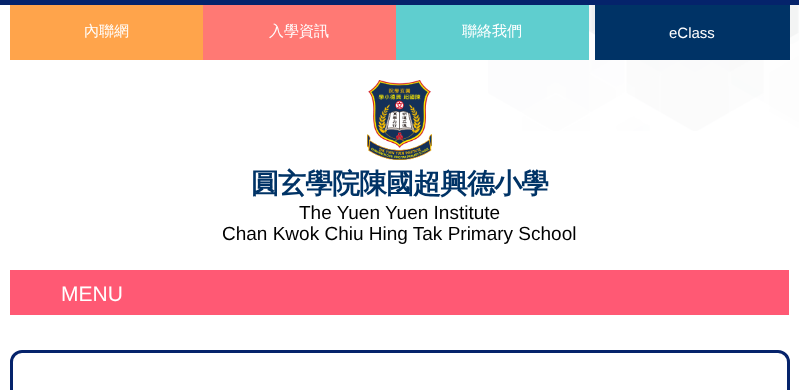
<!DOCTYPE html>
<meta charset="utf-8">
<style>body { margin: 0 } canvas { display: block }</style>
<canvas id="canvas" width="799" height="390"></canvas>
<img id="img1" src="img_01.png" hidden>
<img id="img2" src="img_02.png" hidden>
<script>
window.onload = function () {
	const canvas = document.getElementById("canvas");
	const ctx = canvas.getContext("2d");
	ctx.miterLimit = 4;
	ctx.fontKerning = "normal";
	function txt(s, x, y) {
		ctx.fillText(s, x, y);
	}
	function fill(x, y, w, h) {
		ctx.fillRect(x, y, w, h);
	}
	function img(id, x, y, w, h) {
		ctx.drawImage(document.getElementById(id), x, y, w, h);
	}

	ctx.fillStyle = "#FFFFFF";
	fill(0, 0, 799, 390);
	img("img1", 488, 5, 311, 126);
	ctx.fillStyle = "#05236B";
	fill(0, 0, 799, 5);
	ctx.fillStyle = "#FFA44B";
	fill(10, 5, 193, 55);
	ctx.fillStyle = "#FF7974";
	fill(203, 5, 193, 55);
	ctx.fillStyle = "#5FCECF";
	fill(396, 5, 193, 55);
	img("img2", 367, 80, 65, 80);
	ctx.fillStyle = "#003366";
	fill(595, 5, 195, 55);
	ctx.fillStyle = "#FF5974";
	fill(10, 270, 779, 45);
	ctx.beginPath();
	ctx.roundRect(11.5, 351.5, 777, 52, 10.5);
	ctx.strokeStyle = "#05236B";
	ctx.lineWidth = 3;
	ctx.stroke();
	ctx.font = "500 15px WenQuanYi Zen Hei";
	ctx.fillStyle = "#FFFFFF";
	txt("內聯網", 84, 36);
	txt("入學資訊", 269, 36);
	txt("聯絡我們", 462, 36);
	ctx.letterSpacing = "-1px";
	ctx.font = "bold 28px WenQuanYi Zen Hei";
	ctx.fillStyle = "#003366";
	txt("圓玄學院陳國超興德小學", 251, 193);
	ctx.letterSpacing = "0px";
	ctx.font = "19px Liberation Sans";
	ctx.fillStyle = "#000000";
	txt("The Yuen Yuen Institute", 299, 219);
	txt("Chan Kwok Chiu Hing Tak Primary School", 222, 240);
	ctx.font = "15px Liberation Sans";
	ctx.fillStyle = "#FFFFFF";
	txt("eClass", 669, 38);
	ctx.font = "21px Liberation Sans";
	txt("MENU", 61, 301);
};
</script>
